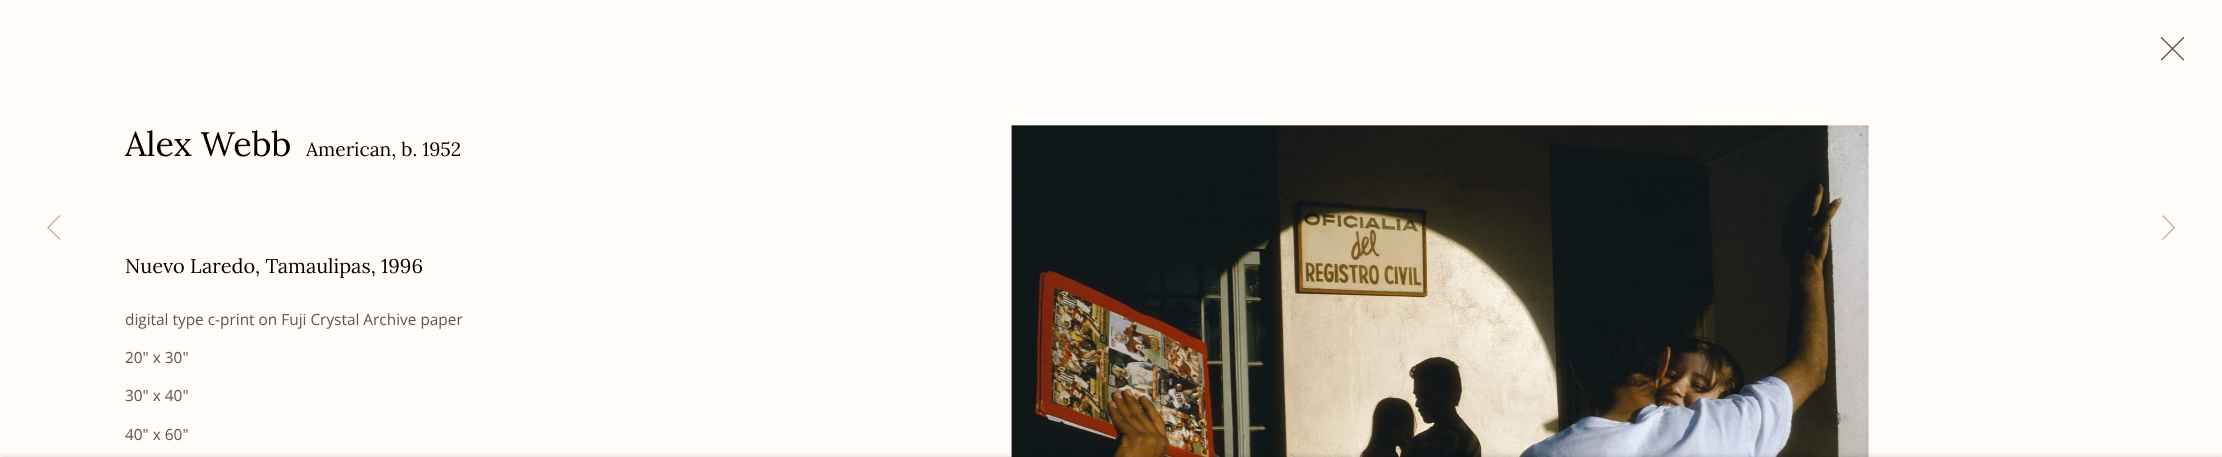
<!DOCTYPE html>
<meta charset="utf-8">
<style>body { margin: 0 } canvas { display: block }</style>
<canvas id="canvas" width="2222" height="457"></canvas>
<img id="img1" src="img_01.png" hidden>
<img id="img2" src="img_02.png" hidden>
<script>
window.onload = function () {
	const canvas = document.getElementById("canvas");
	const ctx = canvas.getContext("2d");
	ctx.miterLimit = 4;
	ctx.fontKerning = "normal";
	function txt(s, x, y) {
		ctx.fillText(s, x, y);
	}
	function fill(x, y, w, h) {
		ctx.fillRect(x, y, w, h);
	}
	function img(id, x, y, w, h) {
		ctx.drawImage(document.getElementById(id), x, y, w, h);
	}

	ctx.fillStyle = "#FFFCF9";
	fill(0, 0, 2222, 457);
	img("img1", 2160, 36, 25, 25);
	img("img2", 1011, 125, 858, 332);
	ctx.fillStyle = "#B9B7B5";
	ctx.beginPath();
	ctx.moveTo(48, 228.5);
	ctx.lineTo(59.5, 240);
	ctx.lineTo(60.5, 239);
	ctx.lineTo(49, 227.5);
	ctx.lineTo(60.5, 216);
	ctx.lineTo(59.5, 215);
	ctx.lineTo(47, 227.5);
	ctx.closePath();
	ctx.fill();
	ctx.beginPath();
	ctx.moveTo(2175.5, 227.5);
	ctx.lineTo(2163, 215);
	ctx.lineTo(2162, 216);
	ctx.lineTo(2173.5, 227.5);
	ctx.lineTo(2162, 239);
	ctx.lineTo(2163, 240);
	ctx.closePath();
	ctx.fill();
	ctx.fillStyle = "rgba(0, 0, 0, 0.23)";
	ctx.filter = "blur(3px)";
	ctx.beginPath();
	ctx.rect(0, 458, 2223, 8);
	ctx.fill();
	ctx.filter = "none";
	ctx.font = "34px Lora";
	ctx.fillStyle = "#000000";
	txt("Alex Webb", 125, 156);
	ctx.font = "19.25px Lora";
	txt("American, b. 1952", 306, 156);
	ctx.font = "20px Lora";
	txt("Nuevo Laredo, Tamaulipas, 1996", 125, 273);
	ctx.font = "15.4px Open Sans";
	ctx.fillStyle = "#585858";
	txt("digital type c-print on Fuji Crystal Archive paper", 125, 325);
	txt("20\" x 30\"", 125, 363);
	txt("30\" x 40\"", 125, 401);
	txt("40\" x 60\"", 125, 440);
};
</script>
